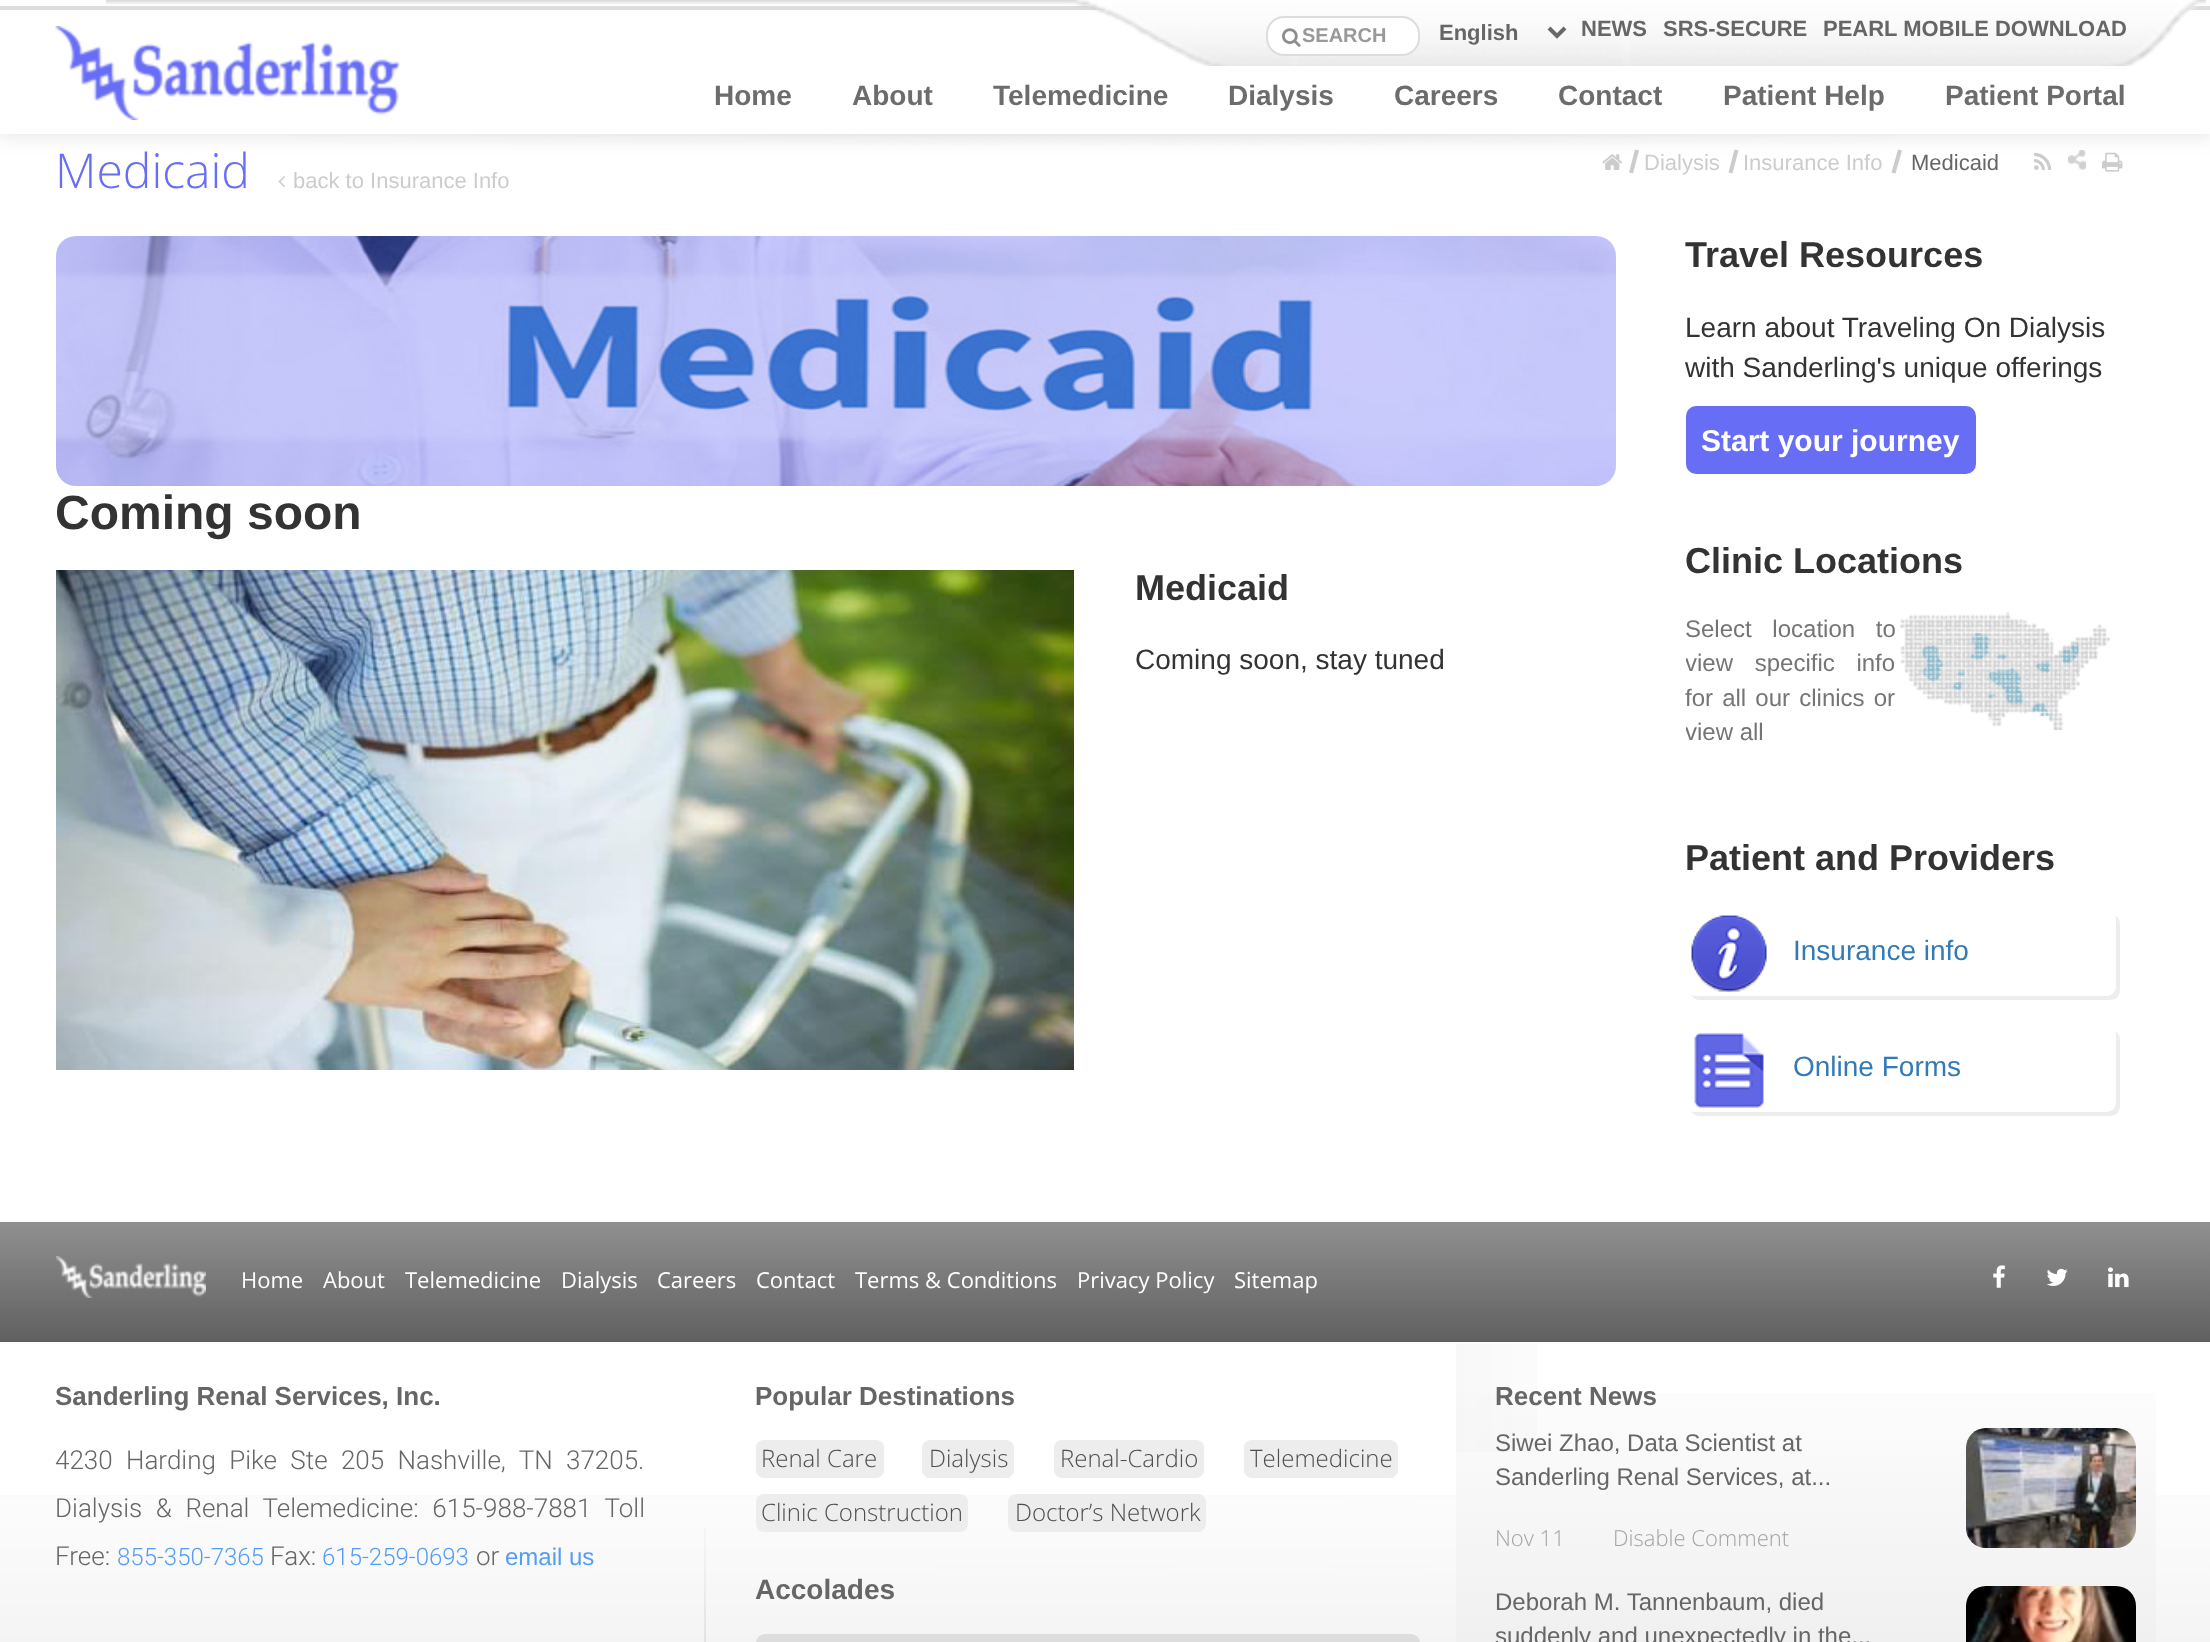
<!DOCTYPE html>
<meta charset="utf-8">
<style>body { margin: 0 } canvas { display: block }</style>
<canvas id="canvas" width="2210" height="1642"></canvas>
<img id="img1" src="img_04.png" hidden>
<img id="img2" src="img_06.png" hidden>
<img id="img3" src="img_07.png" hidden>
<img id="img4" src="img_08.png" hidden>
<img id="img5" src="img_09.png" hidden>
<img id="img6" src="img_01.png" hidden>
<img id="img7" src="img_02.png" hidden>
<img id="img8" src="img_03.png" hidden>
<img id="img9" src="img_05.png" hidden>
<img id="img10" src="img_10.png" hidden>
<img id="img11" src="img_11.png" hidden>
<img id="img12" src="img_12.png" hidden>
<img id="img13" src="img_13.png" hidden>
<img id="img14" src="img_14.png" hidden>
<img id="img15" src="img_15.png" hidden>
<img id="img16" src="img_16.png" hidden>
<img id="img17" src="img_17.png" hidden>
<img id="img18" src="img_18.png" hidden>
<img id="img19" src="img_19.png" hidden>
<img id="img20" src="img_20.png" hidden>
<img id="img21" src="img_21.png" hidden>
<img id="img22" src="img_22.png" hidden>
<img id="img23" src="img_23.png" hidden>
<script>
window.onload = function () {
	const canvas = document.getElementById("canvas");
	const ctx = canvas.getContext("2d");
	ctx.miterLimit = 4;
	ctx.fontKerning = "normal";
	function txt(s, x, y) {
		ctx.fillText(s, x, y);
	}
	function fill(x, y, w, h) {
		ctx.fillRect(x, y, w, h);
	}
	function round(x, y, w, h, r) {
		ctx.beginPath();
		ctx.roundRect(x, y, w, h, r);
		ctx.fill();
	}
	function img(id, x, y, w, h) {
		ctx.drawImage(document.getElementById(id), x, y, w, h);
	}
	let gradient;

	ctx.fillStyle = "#FFFFFF";
	fill(0, 0, 2210, 1642);
	img("img1", 291, 134, 1605, 11);
	img("img2", 1602, 154, 20, 16);
	ctx.fillStyle = "#CCCCCC";
	ctx.beginPath();
	ctx.moveTo(1635, 149.5);
	ctx.lineTo(1639, 150.5);
	ctx.lineTo(1633, 173.5);
	ctx.lineTo(1629, 172.5);
	ctx.closePath();
	ctx.fill();
	ctx.beginPath();
	ctx.moveTo(1734.5, 149.5);
	ctx.lineTo(1738.5, 150.5);
	ctx.lineTo(1732.5, 173.5);
	ctx.lineTo(1728.5, 172.5);
	ctx.closePath();
	ctx.fill();
	ctx.beginPath();
	ctx.moveTo(1898, 149.5);
	ctx.lineTo(1902, 150.5);
	ctx.lineTo(1895.5, 173.5);
	ctx.lineTo(1891.5, 172.5);
	ctx.closePath();
	ctx.fill();
	img("img3", 2034, 152, 18, 18);
	img("img4", 2068, 150, 18, 20);
	img("img5", 2102, 152, 21, 20);
	ctx.fillStyle = "rgba(0, 0, 0, 0.1)";
	ctx.filter = "blur(10px)";
	ctx.beginPath();
	ctx.rect(-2, -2, 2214, 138);
	ctx.fill();
	ctx.filter = "none";
	ctx.fillStyle = "#FFFFFF";
	fill(0, 0, 2210, 134);
	ctx.fillStyle = "#DDDDDD";
	fill(0, 6, 2210, 4);
	img("img6", 106, 0, 2100, 66);
	ctx.fillStyle = "#FFFFFF";
	ctx.beginPath();
	ctx.roundRect(1267, 17, 152, 38, 17);
	ctx.fill();
	ctx.strokeStyle = "#DDDDDD";
	ctx.lineWidth = 2;
	ctx.stroke();
	img("img7", 1282, 28, 19, 19);
	ctx.beginPath();
	ctx.moveTo(1549, 28);
	ctx.lineTo(1557, 36);
	ctx.lineTo(1565, 28);
	ctx.strokeStyle = "#686868";
	ctx.lineWidth = 4;
	ctx.stroke();
	img("img8", 55, 26, 345, 94);
	img("img9", 278, 176, 7, 11);
	img("img10", 56, 236, 1560, 250);
	img("img11", 56, 570, 1018, 500);
	ctx.fillStyle = "#686DF6";
	round(1686, 406, 290, 68, 10);
	img("img12", 1900, 612, 210, 118);
	ctx.fillStyle = "#EDEDED";
	ctx.beginPath();
	ctx.moveTo(1691, 995);
	ctx.bezierCurveTo(1693, 998, 1696, 1000, 1700, 1000);
	ctx.lineTo(2110, 1000);
	ctx.bezierCurveTo(2116, 1000, 2120, 996, 2120, 990);
	ctx.lineTo(2120, 924);
	ctx.bezierCurveTo(2120, 920, 2118, 917, 2115, 915);
	ctx.bezierCurveTo(2116, 917, 2116, 918, 2116, 920);
	ctx.lineTo(2116, 986);
	ctx.bezierCurveTo(2116, 992, 2112, 996, 2106, 996);
	ctx.lineTo(1696, 996);
	ctx.bezierCurveTo(1694, 996, 1693, 996, 1691, 995);
	ctx.closePath();
	ctx.fill();
	img("img13", 1691, 915, 76, 77);
	ctx.beginPath();
	ctx.moveTo(1691, 1111);
	ctx.bezierCurveTo(1693, 1114, 1696, 1116, 1700, 1116);
	ctx.lineTo(2110, 1116);
	ctx.bezierCurveTo(2116, 1116, 2120, 1112, 2120, 1106);
	ctx.lineTo(2120, 1040);
	ctx.bezierCurveTo(2120, 1036, 2118, 1033, 2115, 1031);
	ctx.bezierCurveTo(2116, 1033, 2116, 1034, 2116, 1036);
	ctx.lineTo(2116, 1102);
	ctx.bezierCurveTo(2116, 1108, 2112, 1112, 2106, 1112);
	ctx.lineTo(1696, 1112);
	ctx.bezierCurveTo(1694, 1112, 1693, 1112, 1691, 1111);
	ctx.closePath();
	ctx.fill();
	img("img14", 1694, 1032, 70, 76);
	gradient = ctx.createLinearGradient(1105, 1222, 1105, 1342);
	gradient.addColorStop(0, "#909090");
	gradient.addColorStop(1, "#606060");
	ctx.fillStyle = gradient;
	fill(0, 1222, 2210, 120);
	img("img15", 56, 1256, 150, 42);
	img("img16", 1993, 1265, 12, 23);
	img("img17", 2046, 1268, 22, 18);
	img("img18", 2108, 1267, 21, 21);
	img("img19", 0, 1495, 2210, 147);
	img("img20", 704, 1527, 2, 115);
	ctx.fillStyle = "#EDEDED";
	round(756, 1440, 128, 38, 8);
	round(922, 1440, 92, 38, 8);
	round(1054, 1440, 150, 38, 8);
	round(1244, 1440, 154, 38, 8);
	round(756, 1494, 212, 38, 8);
	round(1008, 1494, 198, 38, 8);
	ctx.fillStyle = "#DDDDDD";
	round(756, 1634, 664, 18, 10);
	gradient = ctx.createLinearGradient(1806, 1344, 1806, 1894);
	gradient.addColorStop(0, "#FFFFFF");
	gradient.addColorStop(1, "#E3E3E3");
	ctx.fillStyle = gradient;
	fill(1456, 1393, 700, 249);
	img("img21", 1456, 1344, 81, 108);
	img("img22", 1966, 1428, 170, 120);
	img("img23", 1966, 1586, 170, 56);
	ctx.font = "bold 20px Liberation Sans";
	ctx.fillStyle = "#999999";
	txt("SEARCH", 1302, 42);
	ctx.font = "bold 22px Liberation Sans";
	ctx.fillStyle = "#666666";
	txt("English", 1439, 40);
	txt("NEWS", 1581, 36);
	txt("SRS-SECURE", 1663, 36);
	txt("PEARL MOBILE DOWNLOAD", 1823, 36);
	ctx.font = "bold 28px Liberation Sans";
	ctx.fillStyle = "#6C6C6C";
	txt("Home", 714, 105);
	txt("About", 852, 105);
	txt("Telemedicine", 993, 105);
	txt("Dialysis", 1228, 105);
	txt("Careers", 1394, 105);
	txt("Contact", 1558, 105);
	txt("Patient Help", 1723, 105);
	txt("Patient Portal", 1945, 105);
	ctx.font = "300 48px Open Sans";
	ctx.fillStyle = "#686DF6";
	txt("Medicaid", 55, 188);
	ctx.font = "22px Liberation Sans";
	ctx.fillStyle = "#CCCCCC";
	txt("back to Insurance Info", 293, 188);
	txt("Dialysis", 1644, 170);
	txt("Insurance Info", 1743, 170);
	ctx.fillStyle = "#666666";
	txt("Medicaid", 1911, 170);
	ctx.font = "bold 48px Liberation Sans";
	ctx.fillStyle = "#333333";
	txt("Coming soon", 55, 529);
	ctx.font = "bold 36px Liberation Sans";
	txt("Medicaid", 1135, 600);
	ctx.font = "28px Liberation Sans";
	txt("Coming soon, stay tuned", 1135, 669);
	ctx.font = "bold 36px Liberation Sans";
	txt("Travel Resources", 1685, 267);
	ctx.font = "28px Liberation Sans";
	txt("Learn about Traveling On Dialysis", 1685, 337);
	txt("with Sanderling's unique offerings", 1685, 377);
	ctx.font = "bold 30px Liberation Sans";
	ctx.fillStyle = "#FFFFFF";
	txt("Start your journey", 1701, 451);
	ctx.font = "bold 36px Liberation Sans";
	ctx.fillStyle = "#333333";
	txt("Clinic Locations", 1685, 573);
	ctx.wordSpacing = "14px";
	ctx.font = "24px Liberation Sans";
	ctx.fillStyle = "#757575";
	txt("Select location to", 1685, 637);
	ctx.save();
	ctx.beginPath();
	ctx.rect(1686, 612, 430, 158);
	ctx.clip();
	ctx.wordSpacing = "15px";
	txt("view specific info", 1685, 671);
	ctx.restore();
	ctx.wordSpacing = "2.5px";
	txt("for all our clinics or", 1685, 706);
	ctx.save();
	ctx.beginPath();
	ctx.rect(1686, 612, 430, 158);
	ctx.clip();
	ctx.wordSpacing = "0px";
	txt("view all", 1685, 740);
	ctx.restore();
	ctx.wordSpacing = "0px";
	ctx.font = "bold 36px Liberation Sans";
	ctx.fillStyle = "#333333";
	txt("Patient and Providers", 1685, 870);
	ctx.font = "28px Liberation Sans";
	ctx.fillStyle = "#337AB7";
	txt("Insurance info", 1793, 960);
	txt("Online Forms", 1793, 1076);
	ctx.font = "22px Open Sans";
	ctx.fillStyle = "#FFFFFF";
	txt("Home", 241, 1288);
	txt("About", 323, 1288);
	txt("Telemedicine", 405, 1288);
	txt("Dialysis", 561, 1288);
	txt("Careers", 657, 1288);
	txt("Contact", 756, 1288);
	txt("Terms & Conditions", 855, 1288);
	txt("Privacy Policy", 1077, 1288);
	txt("Sitemap", 1234, 1288);
	ctx.font = "bold 26px Liberation Sans";
	ctx.fillStyle = "#666666";
	txt("Sanderling Renal Services, Inc.", 55, 1405);
	ctx.wordSpacing = "7px";
	ctx.font = "300 26px Roboto";
	txt("4230 Harding Pike Ste 205 Nashville, TN 37205.", 55, 1469);
	ctx.wordSpacing = "7.25px";
	txt("Dialysis & Renal Telemedicine: 615-988-7881 Toll", 55, 1517);
	ctx.wordSpacing = "0px";
	txt("Free:", 55, 1565);
	ctx.font = "300 24px Roboto";
	ctx.fillStyle = "#559CF3";
	txt("855-350-7365", 117, 1565);
	ctx.font = "300 26px Roboto";
	ctx.fillStyle = "#666666";
	txt("Fax:", 270, 1565);
	ctx.font = "300 24px Roboto";
	ctx.fillStyle = "#559CF3";
	txt("615-259-0693", 322, 1565);
	ctx.font = "300 26px Roboto";
	ctx.fillStyle = "#666666";
	txt("or", 476, 1565);
	ctx.font = "24px Liberation Sans";
	ctx.fillStyle = "#559CF3";
	txt("email us", 505, 1565);
	ctx.font = "bold 26px Liberation Sans";
	ctx.fillStyle = "#666666";
	txt("Popular Destinations", 755, 1405);
	ctx.font = "300 24px Open Sans";
	ctx.fillStyle = "#4F4F4F";
	txt("Renal Care", 761, 1467);
	txt("Dialysis", 929, 1467);
	txt("Renal-Cardio", 1060, 1467);
	txt("Telemedicine", 1250, 1467);
	txt("Clinic Construction", 761, 1521);
	txt("Doctor’s Network", 1015, 1521);
	ctx.font = "bold 28px Liberation Sans";
	ctx.fillStyle = "#666666";
	txt("Accolades", 755, 1599);
	ctx.font = "bold 26px Liberation Sans";
	txt("Recent News", 1495, 1405);
	ctx.font = "24px Liberation Sans";
	txt("Siwei Zhao, Data Scientist at", 1495, 1451);
	txt("Sanderling Renal Services, at...", 1495, 1485);
	ctx.font = "300 22px Open Sans";
	ctx.fillStyle = "#A3A3A3";
	txt("Nov 11", 1495, 1546);
	txt("Disable Comment", 1613, 1546);
	ctx.font = "24px Liberation Sans";
	ctx.fillStyle = "#666666";
	txt("Deborah M. Tannenbaum, died", 1495, 1610);
	txt("suddenly and unexpectedly in the...", 1495, 1644);
};
</script>
